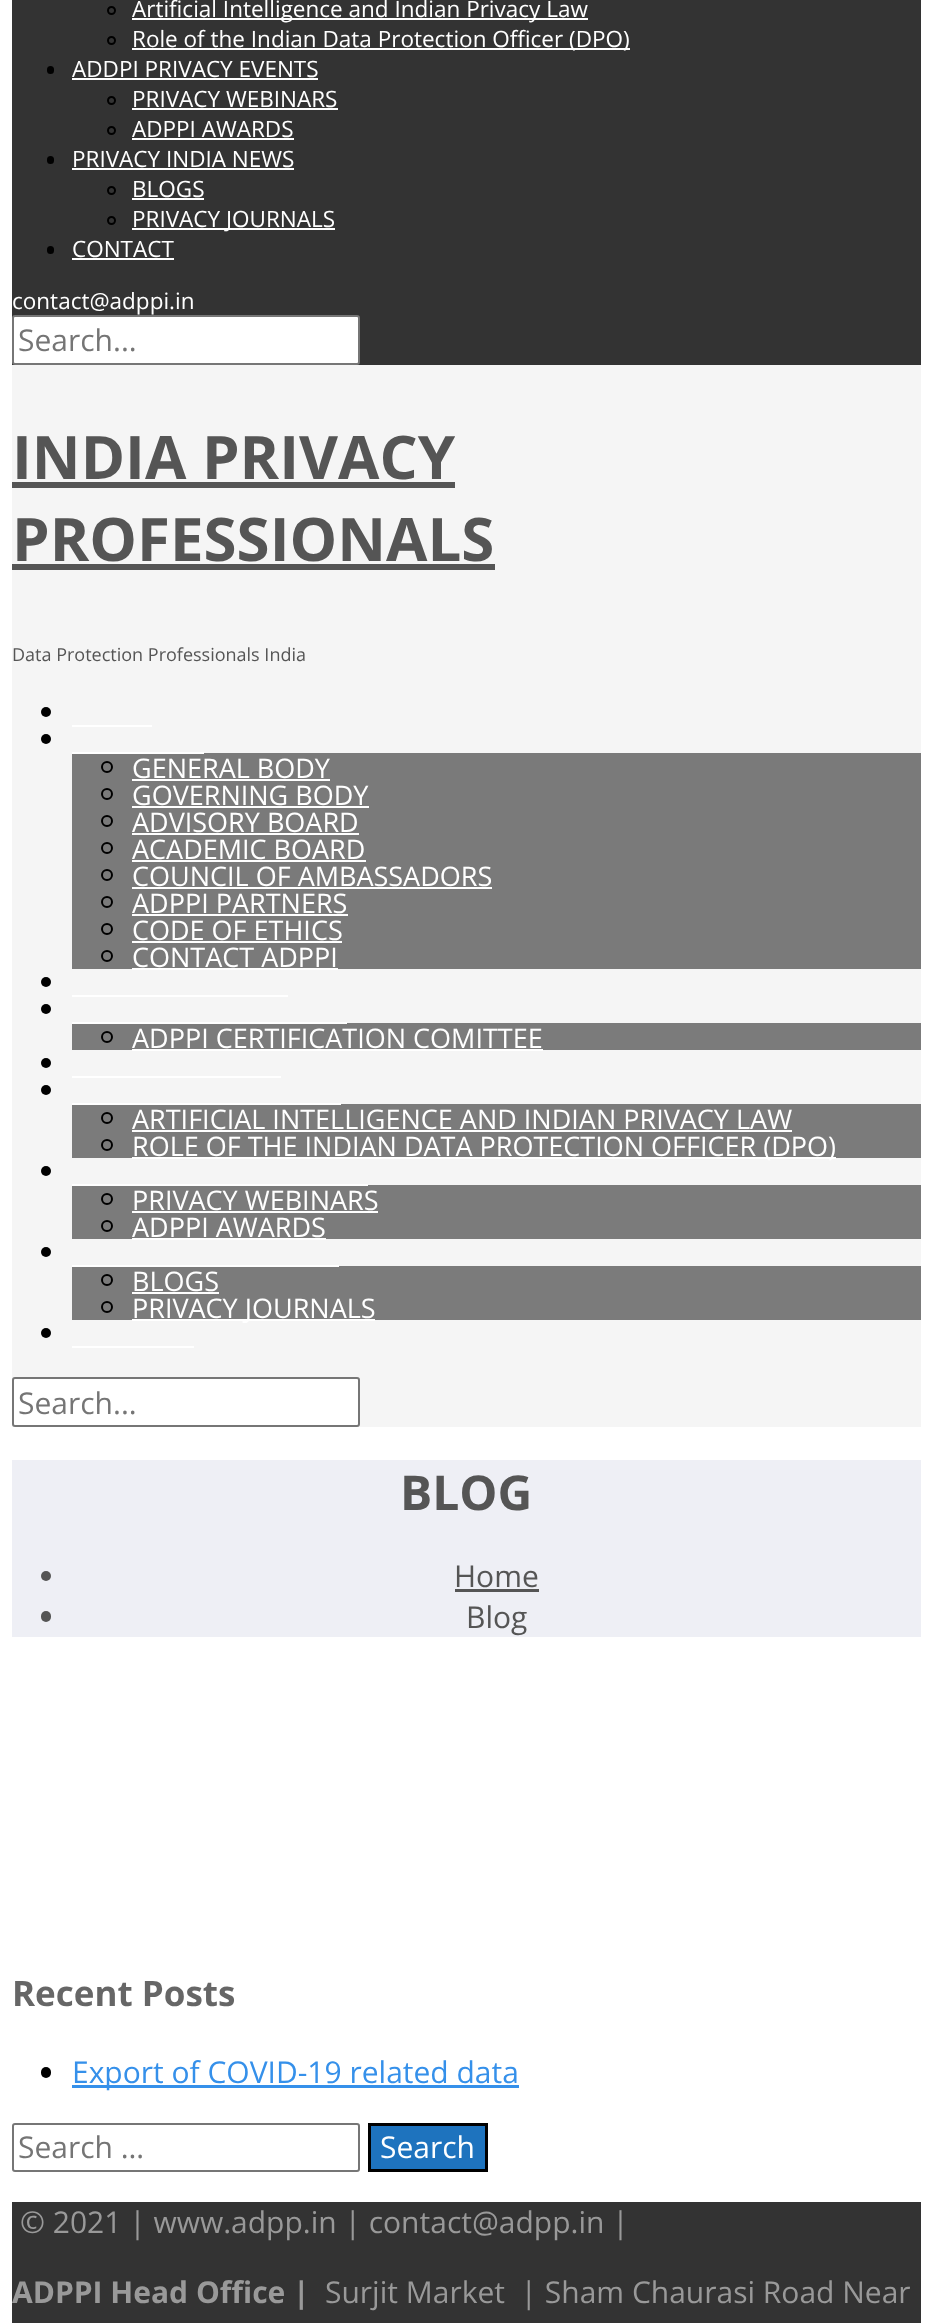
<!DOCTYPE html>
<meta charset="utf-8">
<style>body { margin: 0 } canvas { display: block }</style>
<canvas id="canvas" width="933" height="2323"></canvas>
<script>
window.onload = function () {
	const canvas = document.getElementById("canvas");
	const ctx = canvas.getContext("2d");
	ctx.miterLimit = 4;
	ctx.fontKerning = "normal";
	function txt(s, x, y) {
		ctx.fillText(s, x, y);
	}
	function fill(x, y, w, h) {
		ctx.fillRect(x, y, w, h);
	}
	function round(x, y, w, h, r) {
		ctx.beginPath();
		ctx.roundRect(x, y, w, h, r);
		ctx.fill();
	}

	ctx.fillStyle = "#FFFFFF";
	fill(0, 0, 933, 2323);
	ctx.fillStyle = "#F5F5F5";
	fill(12, 365, 909, 1062);
	ctx.fillStyle = "#333333";
	fill(12, 0, 909, 365);
	ctx.beginPath();
	ctx.arc(111.5, 10.5, 3.5, 0, Math.PI * 2);
	ctx.strokeStyle = "#000000";
	ctx.lineWidth = 2;
	ctx.stroke();
	ctx.fillStyle = "#FFFFFF";
	fill(132, 18, 456, 2);
	ctx.beginPath();
	ctx.arc(111.5, 40.5, 3.5, 0, Math.PI * 2);
	ctx.stroke();
	fill(132, 48, 498, 2);
	ctx.fillStyle = "#000000";
	round(47, 66, 7, 8, 3.5);
	ctx.fillStyle = "#FFFFFF";
	fill(72, 78, 246, 2);
	ctx.beginPath();
	ctx.arc(111.5, 100.5, 3.5, 0, Math.PI * 2);
	ctx.stroke();
	fill(132, 108, 206, 2);
	ctx.beginPath();
	ctx.arc(111.5, 130.5, 3.5, 0, Math.PI * 2);
	ctx.stroke();
	fill(132, 138, 162, 2);
	ctx.fillStyle = "#000000";
	round(47, 156, 7, 8, 3.5);
	ctx.fillStyle = "#FFFFFF";
	fill(72, 168, 222, 2);
	ctx.beginPath();
	ctx.arc(111.5, 190.5, 3.5, 0, Math.PI * 2);
	ctx.stroke();
	fill(132, 198, 72, 2);
	ctx.beginPath();
	ctx.arc(111.5, 220.5, 3.5, 0, Math.PI * 2);
	ctx.stroke();
	fill(132, 228, 203, 2);
	ctx.fillStyle = "#000000";
	round(47, 246, 7, 8, 3.5);
	ctx.fillStyle = "#FFFFFF";
	fill(72, 258, 102, 2);
	ctx.beginPath();
	ctx.roundRect(13, 316, 346, 48, 2);
	ctx.fill();
	ctx.strokeStyle = "#767676";
	ctx.stroke();
	ctx.fillStyle = "#555555";
	fill(12, 482, 443, 6);
	fill(12, 564, 483, 6);
	ctx.fillStyle = "#000000";
	ctx.beginPath();
	ctx.arc(46, 712, 5, 0, Math.PI * 2);
	ctx.fill();
	ctx.fillStyle = "#FFFFFF";
	fill(72, 725, 80, 2);
	ctx.fillStyle = "#000000";
	ctx.beginPath();
	ctx.arc(46, 739, 5, 0, Math.PI * 2);
	ctx.fill();
	ctx.fillStyle = "#7A7A7A";
	fill(72, 753, 849, 216);
	ctx.fillStyle = "#FFFFFF";
	fill(72, 752, 132, 2);
	ctx.beginPath();
	ctx.arc(107, 767, 5, 0, Math.PI * 2);
	ctx.strokeStyle = "#000000";
	ctx.stroke();
	fill(132, 779, 198, 2);
	ctx.beginPath();
	ctx.arc(107, 794, 5, 0, Math.PI * 2);
	ctx.stroke();
	fill(132, 806, 237, 2);
	ctx.beginPath();
	ctx.arc(107, 821, 5, 0, Math.PI * 2);
	ctx.stroke();
	fill(132, 833, 227, 2);
	ctx.beginPath();
	ctx.arc(107, 848, 5, 0, Math.PI * 2);
	ctx.stroke();
	fill(132, 860, 234, 2);
	ctx.beginPath();
	ctx.arc(107, 875, 5, 0, Math.PI * 2);
	ctx.stroke();
	fill(132, 887, 360, 2);
	ctx.beginPath();
	ctx.arc(107, 902, 5, 0, Math.PI * 2);
	ctx.stroke();
	fill(132, 914, 216, 2);
	ctx.beginPath();
	ctx.arc(107, 929, 5, 0, Math.PI * 2);
	ctx.stroke();
	fill(132, 941, 210, 2);
	ctx.beginPath();
	ctx.arc(107, 956, 5, 0, Math.PI * 2);
	ctx.stroke();
	fill(132, 968, 206, 2);
	ctx.fillStyle = "#000000";
	ctx.beginPath();
	ctx.arc(46, 982, 5, 0, Math.PI * 2);
	ctx.fill();
	ctx.fillStyle = "#FFFFFF";
	fill(72, 995, 216, 2);
	ctx.fillStyle = "#000000";
	ctx.beginPath();
	ctx.arc(46, 1009, 5, 0, Math.PI * 2);
	ctx.fill();
	ctx.fillStyle = "#7B7B7B";
	fill(72, 1023, 849, 27);
	ctx.fillStyle = "#FFFFFF";
	fill(72, 1022, 275, 2);
	ctx.beginPath();
	ctx.arc(107, 1037, 5, 0, Math.PI * 2);
	ctx.stroke();
	fill(132, 1049, 411, 2);
	ctx.fillStyle = "#000000";
	ctx.beginPath();
	ctx.arc(46, 1063, 5, 0, Math.PI * 2);
	ctx.fill();
	ctx.fillStyle = "#FFFFFF";
	fill(72, 1076, 209, 2);
	ctx.fillStyle = "#000000";
	ctx.beginPath();
	ctx.arc(46, 1090, 5, 0, Math.PI * 2);
	ctx.fill();
	ctx.fillStyle = "#7B7B7B";
	fill(72, 1104, 849, 54);
	ctx.fillStyle = "#FFFFFF";
	fill(72, 1103, 269, 2);
	ctx.beginPath();
	ctx.arc(107, 1118, 5, 0, Math.PI * 2);
	ctx.stroke();
	fill(132, 1130, 660, 2);
	ctx.beginPath();
	ctx.arc(107, 1145, 5, 0, Math.PI * 2);
	ctx.stroke();
	fill(132, 1157, 704, 2);
	ctx.fillStyle = "#000000";
	ctx.beginPath();
	ctx.arc(46, 1171, 5, 0, Math.PI * 2);
	ctx.fill();
	ctx.fillStyle = "#7B7B7B";
	fill(72, 1185, 849, 54);
	ctx.fillStyle = "#FFFFFF";
	fill(72, 1184, 296, 2);
	ctx.beginPath();
	ctx.arc(107, 1199, 5, 0, Math.PI * 2);
	ctx.stroke();
	fill(132, 1211, 246, 2);
	ctx.beginPath();
	ctx.arc(107, 1226, 5, 0, Math.PI * 2);
	ctx.stroke();
	fill(132, 1238, 194, 2);
	ctx.fillStyle = "#000000";
	ctx.beginPath();
	ctx.arc(46, 1252, 5, 0, Math.PI * 2);
	ctx.fill();
	ctx.fillStyle = "#7B7B7B";
	fill(72, 1266, 849, 54);
	ctx.fillStyle = "#FFFFFF";
	fill(72, 1265, 267, 2);
	ctx.beginPath();
	ctx.arc(107, 1280, 5, 0, Math.PI * 2);
	ctx.stroke();
	fill(132, 1292, 87, 2);
	ctx.beginPath();
	ctx.arc(107, 1307, 5, 0, Math.PI * 2);
	ctx.stroke();
	fill(132, 1319, 243, 2);
	ctx.fillStyle = "#000000";
	ctx.beginPath();
	ctx.arc(46, 1333, 5, 0, Math.PI * 2);
	ctx.fill();
	ctx.fillStyle = "#FFFFFF";
	fill(72, 1346, 122, 2);
	ctx.beginPath();
	ctx.roundRect(13, 1378, 346, 48, 2);
	ctx.fill();
	ctx.strokeStyle = "#767676";
	ctx.stroke();
	ctx.fillStyle = "#EEEFF5";
	fill(12, 1460, 909, 177);
	ctx.fillStyle = "#555555";
	ctx.beginPath();
	ctx.arc(46, 1576, 5, 0, Math.PI * 2);
	ctx.fill();
	fill(455, 1589, 84, 3);
	round(41, 1611, 10, 11, 5);
	ctx.fillStyle = "#000000";
	round(41, 2067, 10, 11, 5);
	ctx.fillStyle = "#3590EA";
	fill(72, 2085, 447, 3);
	ctx.beginPath();
	ctx.roundRect(13, 2124, 346, 47, 2);
	ctx.stroke();
	ctx.fillStyle = "#1E73BE";
	ctx.beginPath();
	ctx.rect(369.5, 2124.5, 117, 46);
	ctx.fill();
	ctx.strokeStyle = "#000000";
	ctx.lineWidth = 3;
	ctx.stroke();
	ctx.fillStyle = "#333333";
	fill(12, 2202, 909, 121);
	ctx.font = "22.5px Open Sans";
	ctx.fillStyle = "#FFFFFF";
	txt("Artificial Intelligence and Indian Privacy Law", 132, 17);
	txt("Role of the Indian Data Protection Officer (DPO)", 132, 47);
	txt("ADDPI PRIVACY EVENTS", 72, 77);
	txt("PRIVACY WEBINARS", 132, 107);
	txt("ADPPI AWARDS", 132, 137);
	txt("PRIVACY INDIA NEWS", 72, 167);
	txt("BLOGS", 132, 197);
	txt("PRIVACY JOURNALS", 132, 227);
	txt("CONTACT", 72, 257);
	txt("contact@adppi.in", 12, 309);
	ctx.font = "30px Open Sans";
	ctx.fillStyle = "#757575";
	txt("Search...", 18, 351);
	ctx.font = "bold 60px Open Sans";
	ctx.fillStyle = "#555555";
	txt("INDIA PRIVACY", 12, 479);
	txt("PROFESSIONALS", 12, 561);
	ctx.font = "18px Open Sans";
	txt("Data Protection Professionals India", 12, 661);
	ctx.font = "27px Open Sans";
	ctx.fillStyle = "#FFFFFF";
	txt("GENERAL BODY", 132, 778);
	txt("GOVERNING BODY", 132, 805);
	txt("ADVISORY BOARD", 132, 832);
	txt("ACADEMIC BOARD", 132, 859);
	txt("COUNCIL OF AMBASSADORS", 132, 886);
	txt("ADPPI PARTNERS", 132, 913);
	txt("CODE OF ETHICS", 132, 940);
	txt("CONTACT ADPPI", 132, 967);
	txt("ADPPI CERTIFICATION COMITTEE", 132, 1048);
	txt("ARTIFICIAL INTELLIGENCE AND INDIAN PRIVACY LAW", 132, 1129);
	txt("ROLE OF THE INDIAN DATA PROTECTION OFFICER (DPO)", 132, 1156);
	txt("PRIVACY WEBINARS", 132, 1210);
	txt("ADPPI AWARDS", 132, 1237);
	txt("BLOGS", 132, 1291);
	txt("PRIVACY JOURNALS", 132, 1318);
	ctx.font = "30px Open Sans";
	ctx.fillStyle = "#757575";
	txt("Search...", 18, 1414);
	ctx.font = "bold 48px Open Sans";
	ctx.fillStyle = "#555555";
	txt("BLOG", 400, 1510);
	ctx.font = "30px Open Sans";
	txt("Home", 454, 1587);
	txt("Blog", 466, 1628);
	ctx.font = "bold 35px Open Sans";
	ctx.fillStyle = "#666666";
	txt("Recent Posts", 12, 2006);
	ctx.font = "30px Open Sans";
	ctx.fillStyle = "#3590EA";
	txt("Export of COVID-19 related data", 72, 2083);
	ctx.fillStyle = "#757575";
	txt("Search …", 18, 2158);
	ctx.fillStyle = "#FFFFFF";
	txt("Search", 380, 2158);
	ctx.fillStyle = "#999999";
	txt("© 2021 | www.adpp.in | contact@adpp.in |", 20, 2233);
	ctx.font = "bold 30px Open Sans";
	txt("ADPPI Head Office |", 12, 2303);
	ctx.font = "30px Open Sans";
	txt("Surjit Market  | Sham Chaurasi Road Near", 325, 2303);
};
</script>
